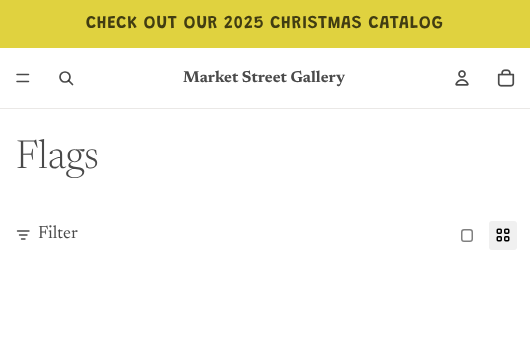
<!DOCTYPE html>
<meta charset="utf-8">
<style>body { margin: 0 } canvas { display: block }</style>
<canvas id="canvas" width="530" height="337"></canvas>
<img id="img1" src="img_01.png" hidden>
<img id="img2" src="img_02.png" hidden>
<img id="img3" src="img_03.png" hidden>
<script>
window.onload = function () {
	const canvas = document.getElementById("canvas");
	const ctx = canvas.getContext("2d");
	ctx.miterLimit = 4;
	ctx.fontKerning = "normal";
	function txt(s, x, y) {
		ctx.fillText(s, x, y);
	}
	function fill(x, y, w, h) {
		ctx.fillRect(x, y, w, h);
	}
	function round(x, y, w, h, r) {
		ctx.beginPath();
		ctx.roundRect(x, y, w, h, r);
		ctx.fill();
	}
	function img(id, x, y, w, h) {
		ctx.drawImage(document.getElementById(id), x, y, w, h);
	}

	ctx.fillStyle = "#FFFFFF";
	fill(0, 0, 530, 337);
	ctx.fillStyle = "#E0D23F";
	fill(0, 0, 530, 48);
	ctx.fillStyle = "#EAE8E6";
	fill(0, 108, 530, 1);
	ctx.beginPath();
	ctx.moveTo(17, 74.5);
	ctx.lineTo(28.5, 74.5);
	ctx.moveTo(17, 81.5);
	ctx.lineTo(28.5, 81.5);
	ctx.strokeStyle = "#4A4A4A";
	ctx.lineWidth = 1.5;
	ctx.lineCap = "round";
	ctx.stroke();
	ctx.beginPath();
	ctx.arc(65, 77, 5, 0, Math.PI * 2);
	ctx.lineWidth = 1.7;
	ctx.stroke();
	ctx.beginPath();
	ctx.moveTo(69, 81);
	ctx.lineTo(72.5, 84.5);
	ctx.strokeStyle = "rgba(0, 0, 0, 0.71)";
	ctx.lineJoin = "round";
	ctx.stroke();
	img("img1", 455, 70, 14, 16);
	img("img2", 497, 69, 18, 18);
	ctx.beginPath();
	ctx.moveTo(29, 231);
	ctx.lineTo(17.5, 231);
	ctx.moveTo(27, 235);
	ctx.lineTo(19.5, 235);
	ctx.moveTo(21.5, 239);
	ctx.lineTo(25, 239);
	ctx.strokeStyle = "#4A4A4A";
	ctx.lineWidth = 1.4;
	ctx.lineJoin = "miter";
	ctx.stroke();
	ctx.beginPath();
	ctx.roundRect(461.75, 229.75, 10.5, 11.5, 2.25);
	ctx.strokeStyle = "#808080";
	ctx.lineWidth = 1.5;
	ctx.stroke();
	ctx.fillStyle = "#F0F0F0";
	round(489, 221, 28, 29, 3);
	img("img3", 496, 228, 14, 14);
	ctx.letterSpacing = "0.55px";
	ctx.font = "600 18px Grandstander";
	ctx.fillStyle = "#413D12";
	txt("CHECK OUT OUR 2025 CHRISTMAS CATALOG", 86, 28);
	ctx.letterSpacing = "0px";
	ctx.font = "bold 16px Newsreader";
	ctx.fillStyle = "#4A4A4A";
	txt("Market Street Gallery", 183, 82);
	ctx.font = "300 40px Newsreader";
	txt("Flags", 16, 168);
	ctx.font = "18px Newsreader";
	txt("Filter", 38, 238);
};
</script>
